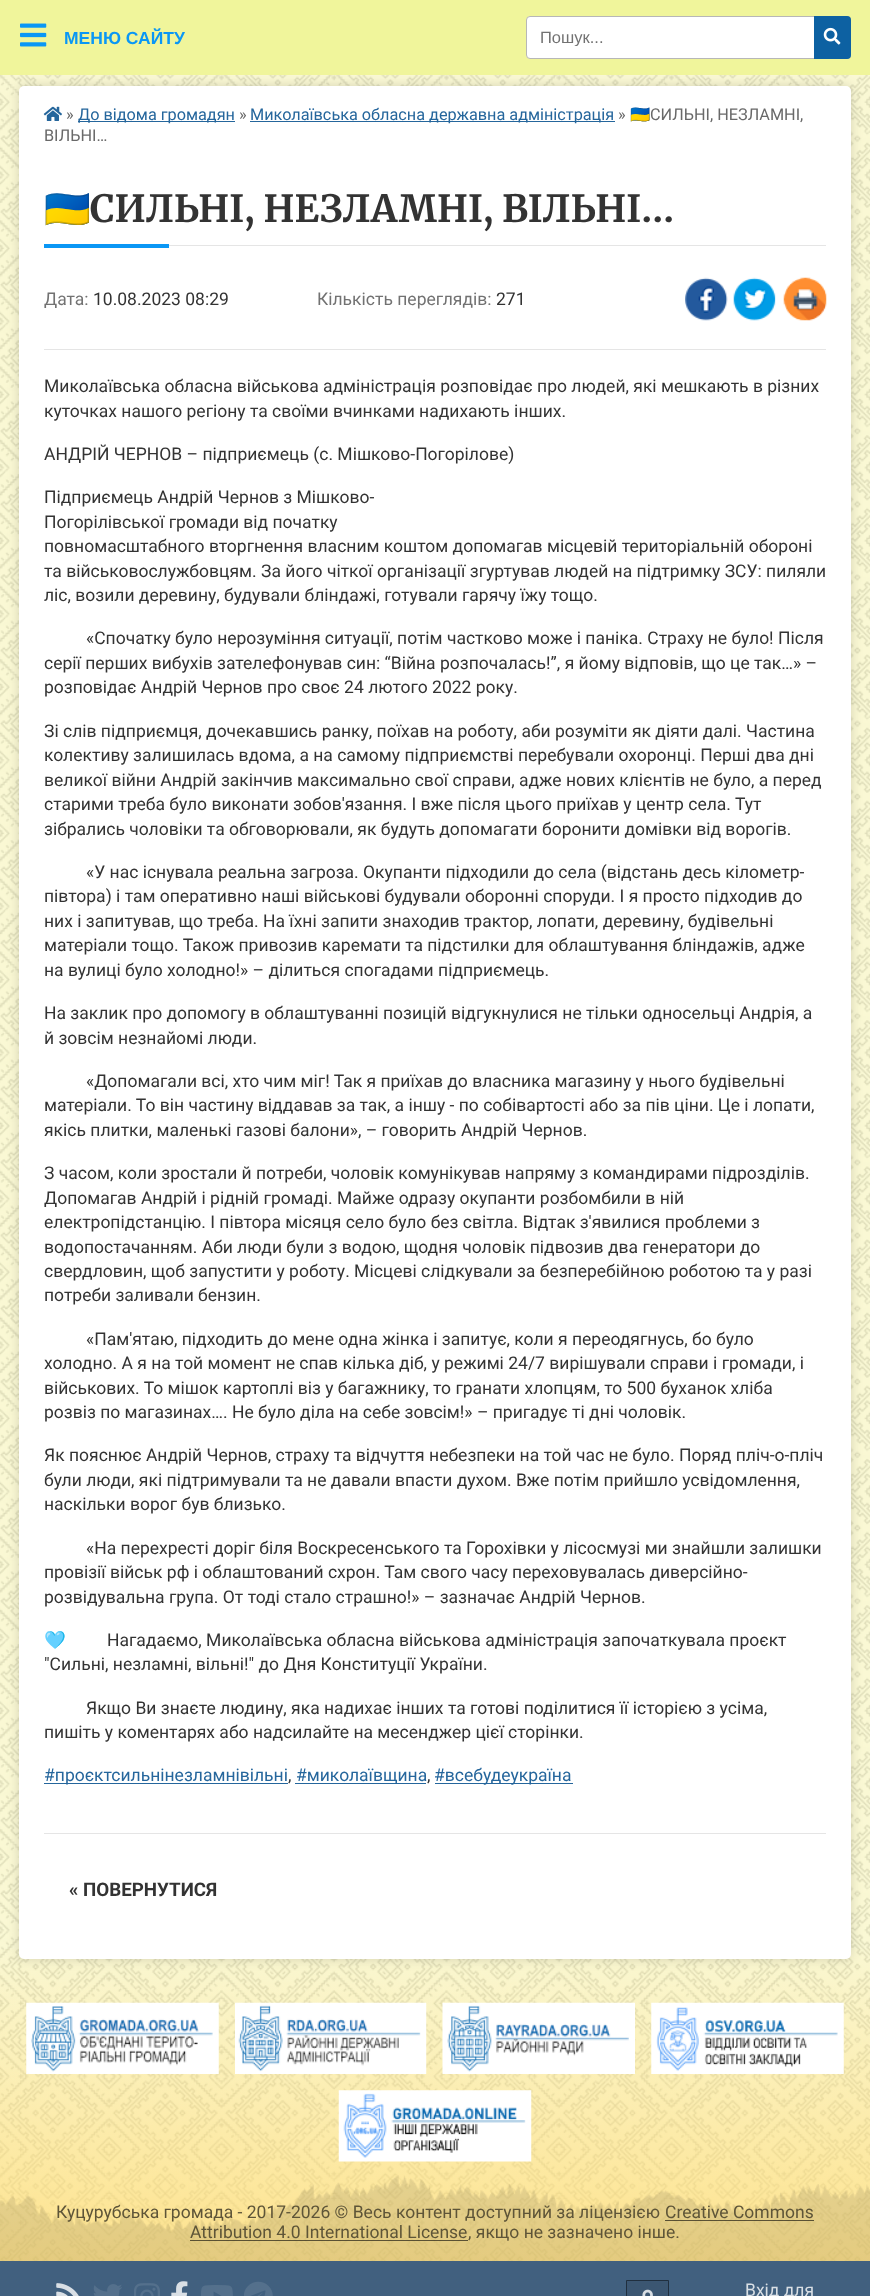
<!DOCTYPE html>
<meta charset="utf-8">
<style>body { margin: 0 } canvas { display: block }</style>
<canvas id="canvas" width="870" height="2296"></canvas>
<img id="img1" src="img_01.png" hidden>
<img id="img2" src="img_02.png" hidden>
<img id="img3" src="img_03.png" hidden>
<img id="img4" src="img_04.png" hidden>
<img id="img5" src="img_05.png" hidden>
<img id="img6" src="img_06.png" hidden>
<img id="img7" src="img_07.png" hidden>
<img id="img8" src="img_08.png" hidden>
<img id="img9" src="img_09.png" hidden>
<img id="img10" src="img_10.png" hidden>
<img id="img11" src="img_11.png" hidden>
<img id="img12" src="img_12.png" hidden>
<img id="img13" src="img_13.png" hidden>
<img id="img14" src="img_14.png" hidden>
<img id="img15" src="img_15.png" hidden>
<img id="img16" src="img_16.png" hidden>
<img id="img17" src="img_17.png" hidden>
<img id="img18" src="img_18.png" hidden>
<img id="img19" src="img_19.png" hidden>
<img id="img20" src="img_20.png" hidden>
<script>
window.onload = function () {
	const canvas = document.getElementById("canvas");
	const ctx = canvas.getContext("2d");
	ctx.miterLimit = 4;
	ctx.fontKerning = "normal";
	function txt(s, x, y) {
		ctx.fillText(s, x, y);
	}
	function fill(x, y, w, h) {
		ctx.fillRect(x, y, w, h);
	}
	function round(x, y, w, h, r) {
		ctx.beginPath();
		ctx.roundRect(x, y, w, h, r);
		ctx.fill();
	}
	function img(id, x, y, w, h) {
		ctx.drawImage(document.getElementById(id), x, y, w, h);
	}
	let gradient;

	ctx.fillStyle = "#FBF9D1";
	fill(0, 0, 870, 2296);
	img("img1", 0, 75, 870, 2186);
	gradient = ctx.createLinearGradient(435, 1940, 435, 2261);
	gradient.addColorStop(0, "rgba(255, 218, 115, 0)");
	gradient.addColorStop(1, "rgba(255, 218, 115, 0.73)");
	ctx.fillStyle = gradient;
	fill(0, 1949, 870, 312);
	ctx.fillStyle = "rgba(0, 0, 0, 0.15)";
	ctx.filter = "blur(6px)";
	ctx.beginPath();
	ctx.roundRect(19, 86, 832, 1873, 5);
	ctx.fill();
	ctx.filter = "none";
	ctx.fillStyle = "#FFFFFF";
	round(19, 86, 832, 1873, 5);
	ctx.fillStyle = "#F0F59B";
	fill(0, 0, 870, 75);
	img("img2", 20, 23, 27, 24);
	img("img3", 43, 106, 19, 15);
	ctx.fillStyle = "#25669C";
	fill(78, 121, 157, 1);
	fill(250, 121, 365, 1);
	ctx.fillStyle = "#E5E5E5";
	fill(169, 245, 657, 1);
	ctx.fillStyle = "#0A97F5";
	fill(44, 244, 125, 4);
	img("img4", 685, 277, 43, 44);
	img("img5", 733, 277, 43, 44);
	img("img6", 783, 277, 44, 44);
	ctx.fillStyle = "#E5E5E5";
	fill(44, 349, 782, 1);
	ctx.fillStyle = "#25669C";
	fill(44, 1783, 244, 1);
	fill(295, 1783, 131, 1);
	fill(435, 1783, 138, 1);
	ctx.fillStyle = "#E5E5E5";
	fill(44, 1833, 782, 1);
	ctx.fillStyle = "#FFFFFF";
	ctx.beginPath();
	ctx.roundRect(526.5, 16.5, 324, 42, 3.5);
	ctx.fill();
	ctx.strokeStyle = "#B7B7B7";
	ctx.stroke();
	ctx.fillStyle = "#0D61A2";
	ctx.beginPath();
	ctx.roundRect(814, 16, 37, 43, [0, 4, 4, 0]);
	ctx.fill();
	img("img7", 823, 27, 18, 18);
	img("img8", 0, 2175, 870, 86);
	img("img9", 26, 2002, 193, 72);
	img("img10", 235, 2002, 192, 72);
	img("img11", 442, 2002, 193, 72);
	img("img12", 651, 2002, 193, 72);
	img("img13", 338, 2090, 194, 72);
	ctx.fillStyle = "rgba(0, 0, 0, 0.6)";
	fill(665, 2220, 149, 1);
	fill(190, 2240, 278, 1);
	ctx.fillStyle = "#41607F";
	fill(0, 2261, 870, 35);
	img("img14", 56, 2283, 23, 13);
	img("img15", 93, 2284, 29, 12);
	img("img16", 134, 2283, 26, 13);
	img("img17", 171, 2281, 17, 15);
	img("img18", 201, 2285, 32, 11);
	img("img19", 244, 2281, 29, 15);
	ctx.fillStyle = "#3B5672";
	ctx.beginPath();
	ctx.rect(626.5, 2280.5, 42, 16);
	ctx.fill();
	ctx.strokeStyle = "#202F3F";
	ctx.stroke();
	img("img20", 642, 2289, 11, 7);
	ctx.font = "bold 17.5px Liberation Sans";
	ctx.fillStyle = "#0A97F5";
	txt("МЕНЮ САЙТУ", 64, 44);
	ctx.font = "16.25px Roboto";
	ctx.fillStyle = "#696969";
	txt("»", 66, 120);
	ctx.fillStyle = "#25669C";
	txt("До відома громадян", 78, 120);
	ctx.fillStyle = "#696969";
	txt("»", 239, 120);
	ctx.fillStyle = "#25669C";
	txt("Миколаївська обласна державна адміністрація", 250, 120);
	ctx.fillStyle = "#696969";
	txt("»", 618, 120);
	ctx.font = "16.25px Noto Color Emoji";
	txt("🇺🇦", 630, 120);
	ctx.font = "16.25px Roboto";
	txt("СИЛЬНІ, НЕЗЛАМНІ,", 650, 120);
	txt("ВІЛЬНІ…", 44, 141);
	ctx.font = "bold 37.5px Noto Color Emoji";
	ctx.fillStyle = "#333333";
	txt("🇺🇦", 44, 222);
	ctx.font = "300 37.5px Merriweather";
	txt("СИЛЬНІ, НЕЗЛАМНІ, ВІЛЬНІ…", 90, 222);
	ctx.font = "17.5px Roboto";
	ctx.fillStyle = "#727272";
	txt("Дата:", 44, 305);
	ctx.fillStyle = "#333333";
	txt("10.08.2023 08:29", 93, 305);
	ctx.fillStyle = "#727272";
	txt("Кількість переглядів:", 317, 305);
	ctx.fillStyle = "#333333";
	txt("271", 496, 305);
	txt("Миколаївська обласна військова адміністрація розповідає про людей, які мешкають в різних", 44, 392);
	txt("куточках нашого регіону та своїми вчинками надихають інших.", 44, 417);
	txt("АНДРІЙ ЧЕРНОВ – підприємець (с. Мішково-Погорілове)", 44, 460);
	txt("Підприємець Андрій Чернов з Мішково-", 44, 503);
	txt("Погорілівської громади від початку", 44, 528);
	txt("повномасштабного вторгнення власним коштом допомагав місцевій територіальній обороні", 44, 552);
	txt("та військовослужбовцям. За його чіткої організації згуртував людей на підтримку ЗСУ: пиляли", 44, 577);
	txt("ліс, возили деревину, будували бліндажі, готували гарячу їжу тощо.", 44, 601);
	txt("«Спочатку було нерозуміння ситуації, потім частково може і паніка. Страху не було! Після", 86, 644);
	txt("серії перших вибухів зателефонував син: “Війна розпочалась!”, я йому відповів, що це так…» –", 44, 669);
	txt("розповідає Андрій Чернов про своє 24 лютого 2022 року.", 44, 693);
	txt("Зі слів підприємця, дочекавшись ранку, поїхав на роботу, аби розуміти як діяти далі. Частина", 44, 737);
	txt("колективу залишилась вдома, а на самому підприємстві перебували охоронці. Перші два дні", 44, 761);
	txt("великої війни Андрій закінчив максимально свої справи, адже нових клієнтів не було, а перед", 44, 786);
	txt("старими треба було виконати зобов'язання. І вже після цього приїхав у центр села. Тут", 44, 810);
	txt("зібрались чоловіки та обговорювали, як будуть допомагати боронити домівки від ворогів.", 44, 835);
	txt("«У нас існувала реальна загроза. Окупанти підходили до села (відстань десь кілометр-", 86, 878);
	txt("півтора) і там оперативно наші військові будували оборонні споруди. І я просто підходив до", 44, 902);
	txt("них і запитував, що треба. На їхні запити знаходив трактор, лопати, деревину, будівельні", 44, 927);
	txt("матеріали тощо. Також привозив каремати та підстилки для облаштування бліндажів, адже", 44, 951);
	txt("на вулиці було холодно!» – ділиться спогадами підприємець.", 44, 976);
	txt("На заклик про допомогу в облаштуванні позицій відгукнулися не тільки односельці Андрія, а", 44, 1019);
	txt("й зовсім незнайомі люди.", 44, 1044);
	txt("«Допомагали всі, хто чим міг! Так я приїхав до власника магазину у нього будівельні", 86, 1087);
	txt("матеріали. То він частину віддавав за так, а іншу - по собівартості або за пів ціни. Це і лопати,", 44, 1111);
	txt("якісь плитки, маленькі газові балони», – говорить Андрій Чернов.", 44, 1136);
	txt("З часом, коли зростали й потреби, чоловік комунікував напряму з командирами підрозділів.", 44, 1179);
	txt("Допомагав Андрій і рідній громаді. Майже одразу окупанти розбомбили в ній", 44, 1204);
	txt("електропідстанцію. І півтора місяця село було без світла. Відтак з'явилися проблеми з", 44, 1228);
	txt("водопостачанням. Аби люди були з водою, щодня чоловік підвозив два генератори до", 44, 1253);
	txt("свердловин, щоб запустити у роботу. Місцеві слідкували за безперебійною роботою та у разі", 44, 1277);
	txt("потреби заливали бензин.", 44, 1301);
	txt("«Пам'ятаю, підходить до мене одна жінка і запитує, коли я переодягнусь, бо було", 86, 1345);
	txt("холодно. А я на той момент не спав кілька діб, у режимі 24/7 вирішували справи і громади, і", 44, 1369);
	txt("військових. То мішок картоплі віз у багажнику, то гранати хлопцям, то 500 буханок хліба", 44, 1394);
	txt("розвіз по магазинах…. Не було діла на себе зовсім!» – пригадує ті дні чоловік.", 44, 1418);
	txt("Як пояснює Андрій Чернов, страху та відчуття небезпеки на той час не було. Поряд пліч-о-пліч", 44, 1461);
	txt("були люди, які підтримували та не давали впасти духом. Вже потім прийшло усвідомлення,", 44, 1486);
	txt("наскільки ворог був близько.", 44, 1510);
	txt("«На перехресті доріг біля Воскресенського та Горохівки у лісосмузі ми знайшли залишки", 86, 1554);
	txt("провізії військ рф і облаштований схрон. Там свого часу переховувалась диверсійно-", 44, 1578);
	txt("розвідувальна група. От тоді стало страшно!» – зазначає Андрій Чернов.", 44, 1603);
	ctx.font = "17.5px Noto Color Emoji";
	txt("🩵", 44, 1646);
	ctx.font = "17.5px Roboto";
	txt("Нагадаємо, Миколаївська обласна військова адміністрація започаткувала проєкт", 107, 1646);
	txt("\"Сильні, незламні, вільні!\" до Дня Конституції України.", 44, 1670);
	txt("Якщо Ви знаєте людину, яка надихає інших та готові поділитися її історією з усіма,", 86, 1714);
	txt("пишіть у коментарях або надсилайте на месенджер цієї сторінки.", 44, 1738);
	ctx.fillStyle = "#25669C";
	txt("#проєктсильнінезламнівільні", 44, 1781);
	ctx.fillStyle = "#333333";
	txt(",", 288, 1781);
	ctx.fillStyle = "#25669C";
	txt("#миколаївщина", 296, 1781);
	ctx.fillStyle = "#333333";
	txt(",", 427, 1781);
	ctx.fillStyle = "#25669C";
	txt("#всебудеукраїна", 434, 1781);
	ctx.font = "bold 18.75px Roboto";
	ctx.fillStyle = "#333333";
	txt("« ПОВЕРНУТИСЯ", 69, 1896);
	ctx.save();
	ctx.beginPath();
	ctx.rect(540, 28, 260, 18);
	ctx.clip();
	ctx.font = "16.5px Liberation Sans";
	ctx.fillStyle = "#727272";
	txt("Пошук...", 540, 43);
	ctx.restore();
	ctx.font = "17.5px Roboto";
	ctx.fillStyle = "#5E5538";
	txt("Куцурубська громада - 2017-2026 © Весь контент доступний за ліцензією", 56, 2218);
	txt("Creative Commons", 665, 2218);
	txt("Attribution 4.0 International License", 190, 2238);
	txt(", якщо не зазначено інше.", 468, 2238);
	ctx.fillStyle = "#D9DFE5";
	txt("Вхід для", 745, 2296);
};
</script>
